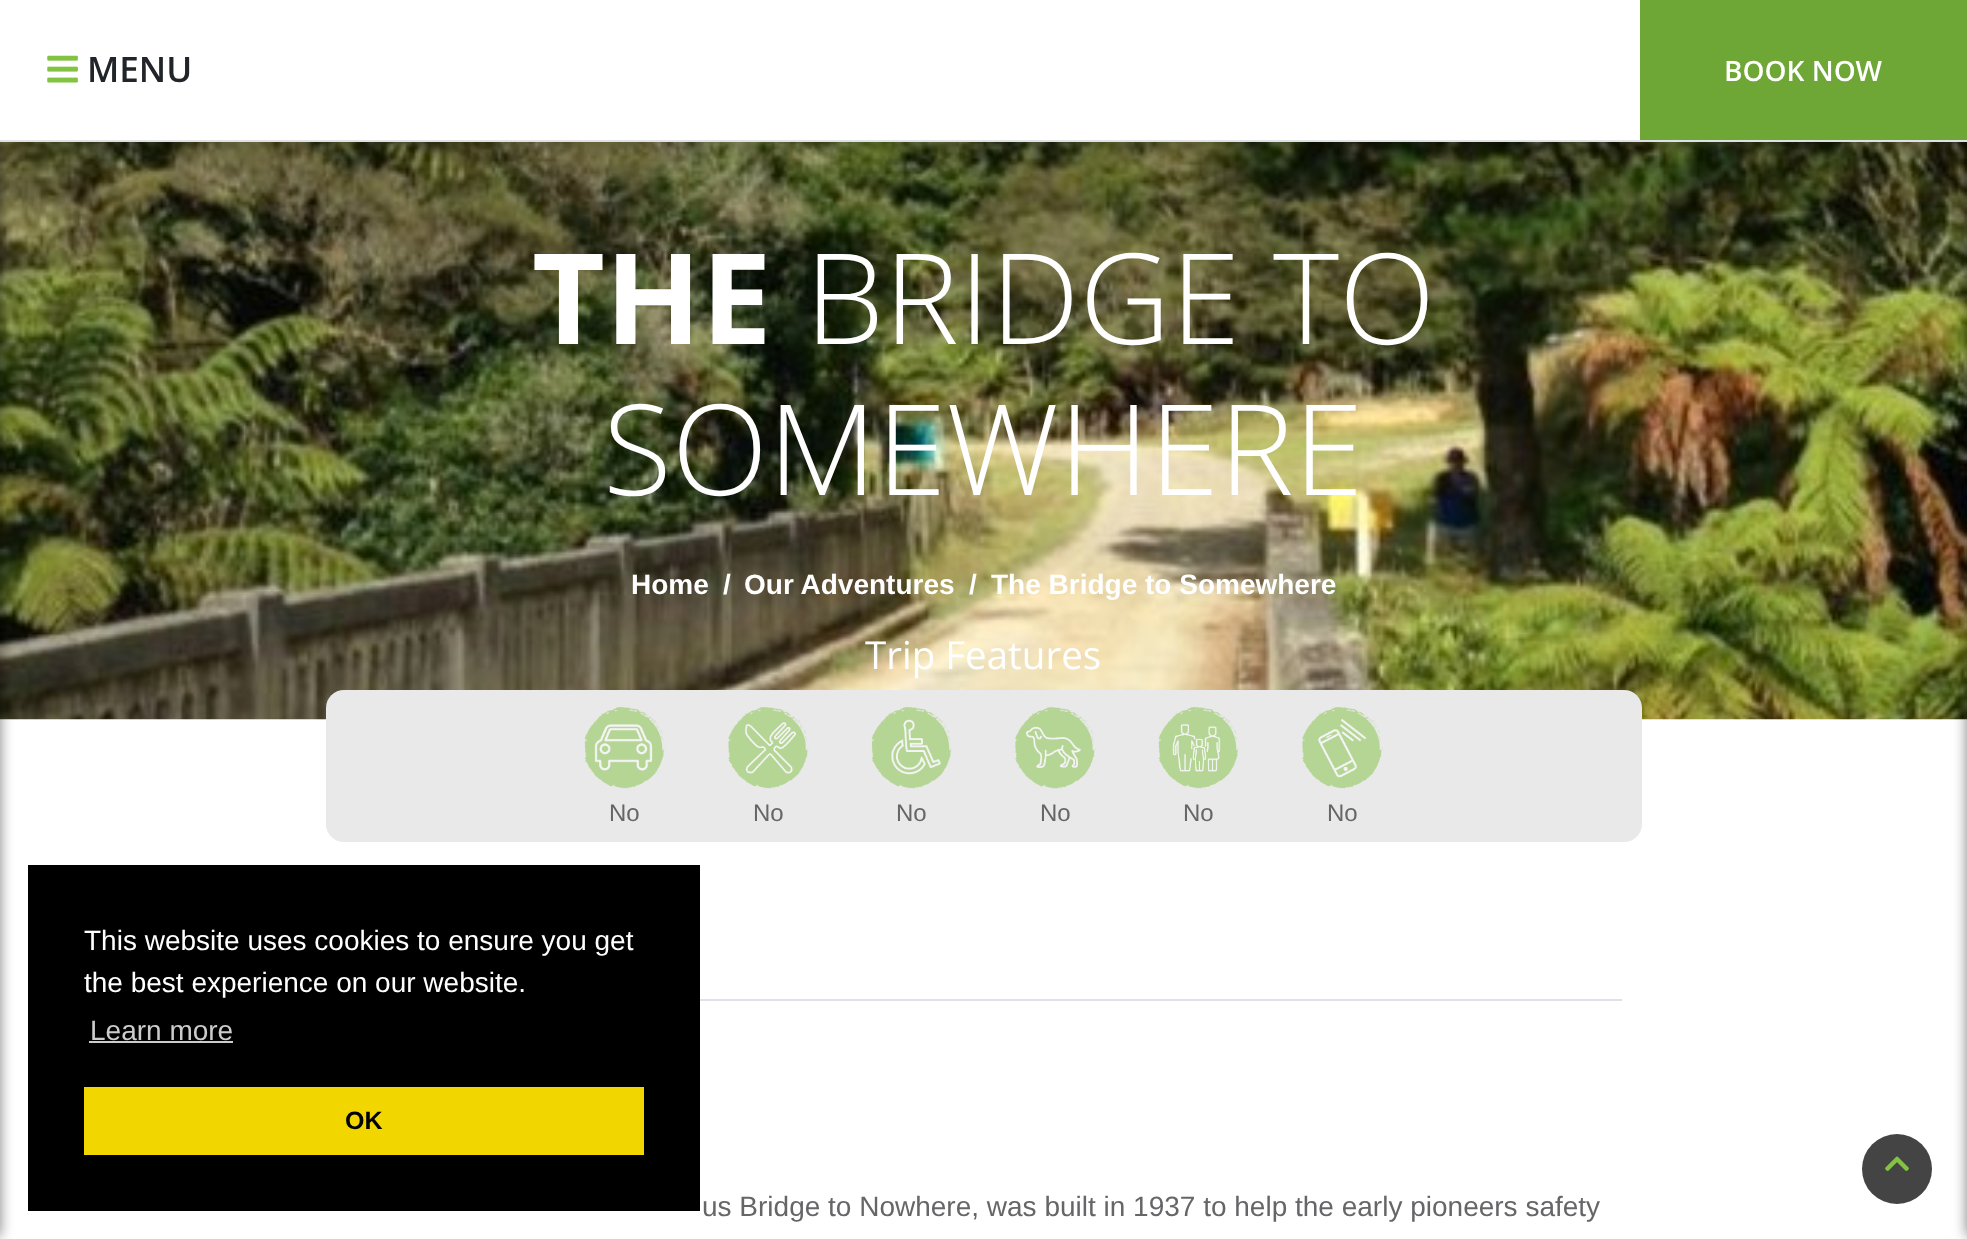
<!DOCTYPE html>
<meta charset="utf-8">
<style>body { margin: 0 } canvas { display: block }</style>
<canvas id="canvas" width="1967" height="1239"></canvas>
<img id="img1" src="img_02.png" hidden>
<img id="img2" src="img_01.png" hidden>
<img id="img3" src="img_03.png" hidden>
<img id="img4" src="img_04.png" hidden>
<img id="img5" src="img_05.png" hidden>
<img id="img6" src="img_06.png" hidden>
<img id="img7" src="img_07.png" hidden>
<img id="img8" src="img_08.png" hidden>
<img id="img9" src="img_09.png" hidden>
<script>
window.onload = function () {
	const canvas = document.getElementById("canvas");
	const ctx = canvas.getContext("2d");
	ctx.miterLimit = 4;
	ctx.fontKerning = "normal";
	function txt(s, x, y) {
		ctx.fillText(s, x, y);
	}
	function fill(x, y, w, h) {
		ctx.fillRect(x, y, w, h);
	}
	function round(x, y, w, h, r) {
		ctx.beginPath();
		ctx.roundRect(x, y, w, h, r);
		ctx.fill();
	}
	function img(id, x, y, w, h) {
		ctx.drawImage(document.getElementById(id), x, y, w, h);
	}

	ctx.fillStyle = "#FFFFFF";
	fill(0, 0, 1967, 1239);
	img("img1", 0, 142, 1967, 578);
	ctx.fillStyle = "rgba(0, 0, 0, 0.5)";
	ctx.filter = "blur(7px)";
	ctx.beginPath();
	ctx.rect(-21, 4, 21, 1232);
	ctx.fill();
	ctx.filter = "none";
	ctx.filter = "blur(7px)";
	ctx.beginPath();
	ctx.rect(1967, 4, 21, 1232);
	ctx.fill();
	ctx.filter = "none";
	ctx.fillStyle = "rgba(0, 0, 0, 0.2)";
	ctx.filter = "blur(7px)";
	ctx.beginPath();
	ctx.rect(9, 9, 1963, 138);
	ctx.fill();
	ctx.filter = "none";
	ctx.fillStyle = "#FFFFFF";
	fill(0, 0, 1640, 140);
	ctx.fillStyle = "#DEE2E6";
	fill(0, 140, 1967, 2);
	img("img2", 47, 55, 31, 28);
	ctx.fillStyle = "#6EA735";
	fill(1640, 0, 327, 140);
	ctx.fillStyle = "#000000";
	fill(28, 865, 672, 346);
	ctx.fillStyle = "#CCCCCC";
	fill(89, 1041, 144, 2);
	ctx.fillStyle = "#F1D600";
	fill(84, 1087, 560, 68);
	ctx.fillStyle = "#E9E9E9";
	round(326, 690, 1316, 152, 18);
	img("img3", 584, 707, 81, 82);
	img("img4", 728, 707, 81, 82);
	img("img5", 871, 707, 81, 82);
	img("img6", 1015, 707, 81, 82);
	img("img7", 1158, 707, 81, 82);
	img("img8", 1302, 707, 81, 82);
	ctx.fillStyle = "#DEE2E6";
	fill(700, 999, 922, 2);
	ctx.fillStyle = "#444444";
	ctx.beginPath();
	ctx.arc(1897, 1169, 35, 0, Math.PI * 2);
	ctx.fill();
	img("img9", 1885, 1156, 24, 15);
	ctx.font = "600 35px Open Sans";
	ctx.fillStyle = "#212529";
	txt("MENU", 87, 82);
	ctx.font = "600 28px Open Sans";
	ctx.fillStyle = "#FFFFFF";
	txt("BOOK NOW", 1724, 81);
	ctx.font = "28px Liberation Sans";
	txt("This website uses cookies to ensure you get", 84, 950);
	txt("the best experience on our website.", 84, 992);
	ctx.fillStyle = "#CCCCCC";
	txt("Learn more", 90, 1040);
	ctx.font = "bold 25px Liberation Sans";
	ctx.fillStyle = "#000000";
	txt("OK", 345, 1129);
	ctx.font = "bold 126px Open Sans";
	ctx.fillStyle = "#FFFFFF";
	txt("THE", 532, 344);
	ctx.font = "300 126px Open Sans";
	txt("BRIDGE TO", 805, 344);
	txt("SOMEWHERE", 603, 495);
	ctx.font = "bold 28px Liberation Sans";
	txt("Home", 631, 594);
	txt("/", 723, 594);
	txt("Our Adventures", 744, 594);
	txt("/", 969, 594);
	txt("The Bridge to Somewhere", 991, 594);
	ctx.font = "38.5px Open Sans";
	txt("Trip Features", 865, 669);
	ctx.font = "24px Liberation Sans";
	ctx.fillStyle = "#666668";
	txt("No", 609, 821);
	txt("No", 753, 821);
	txt("No", 896, 821);
	txt("No", 1040, 821);
	txt("No", 1183, 821);
	txt("No", 1327, 821);
	ctx.font = "28px Liberation Sans";
	txt("us Bridge to Nowhere, was built in 1937 to help the early pioneers safety", 702, 1216);
};
</script>
